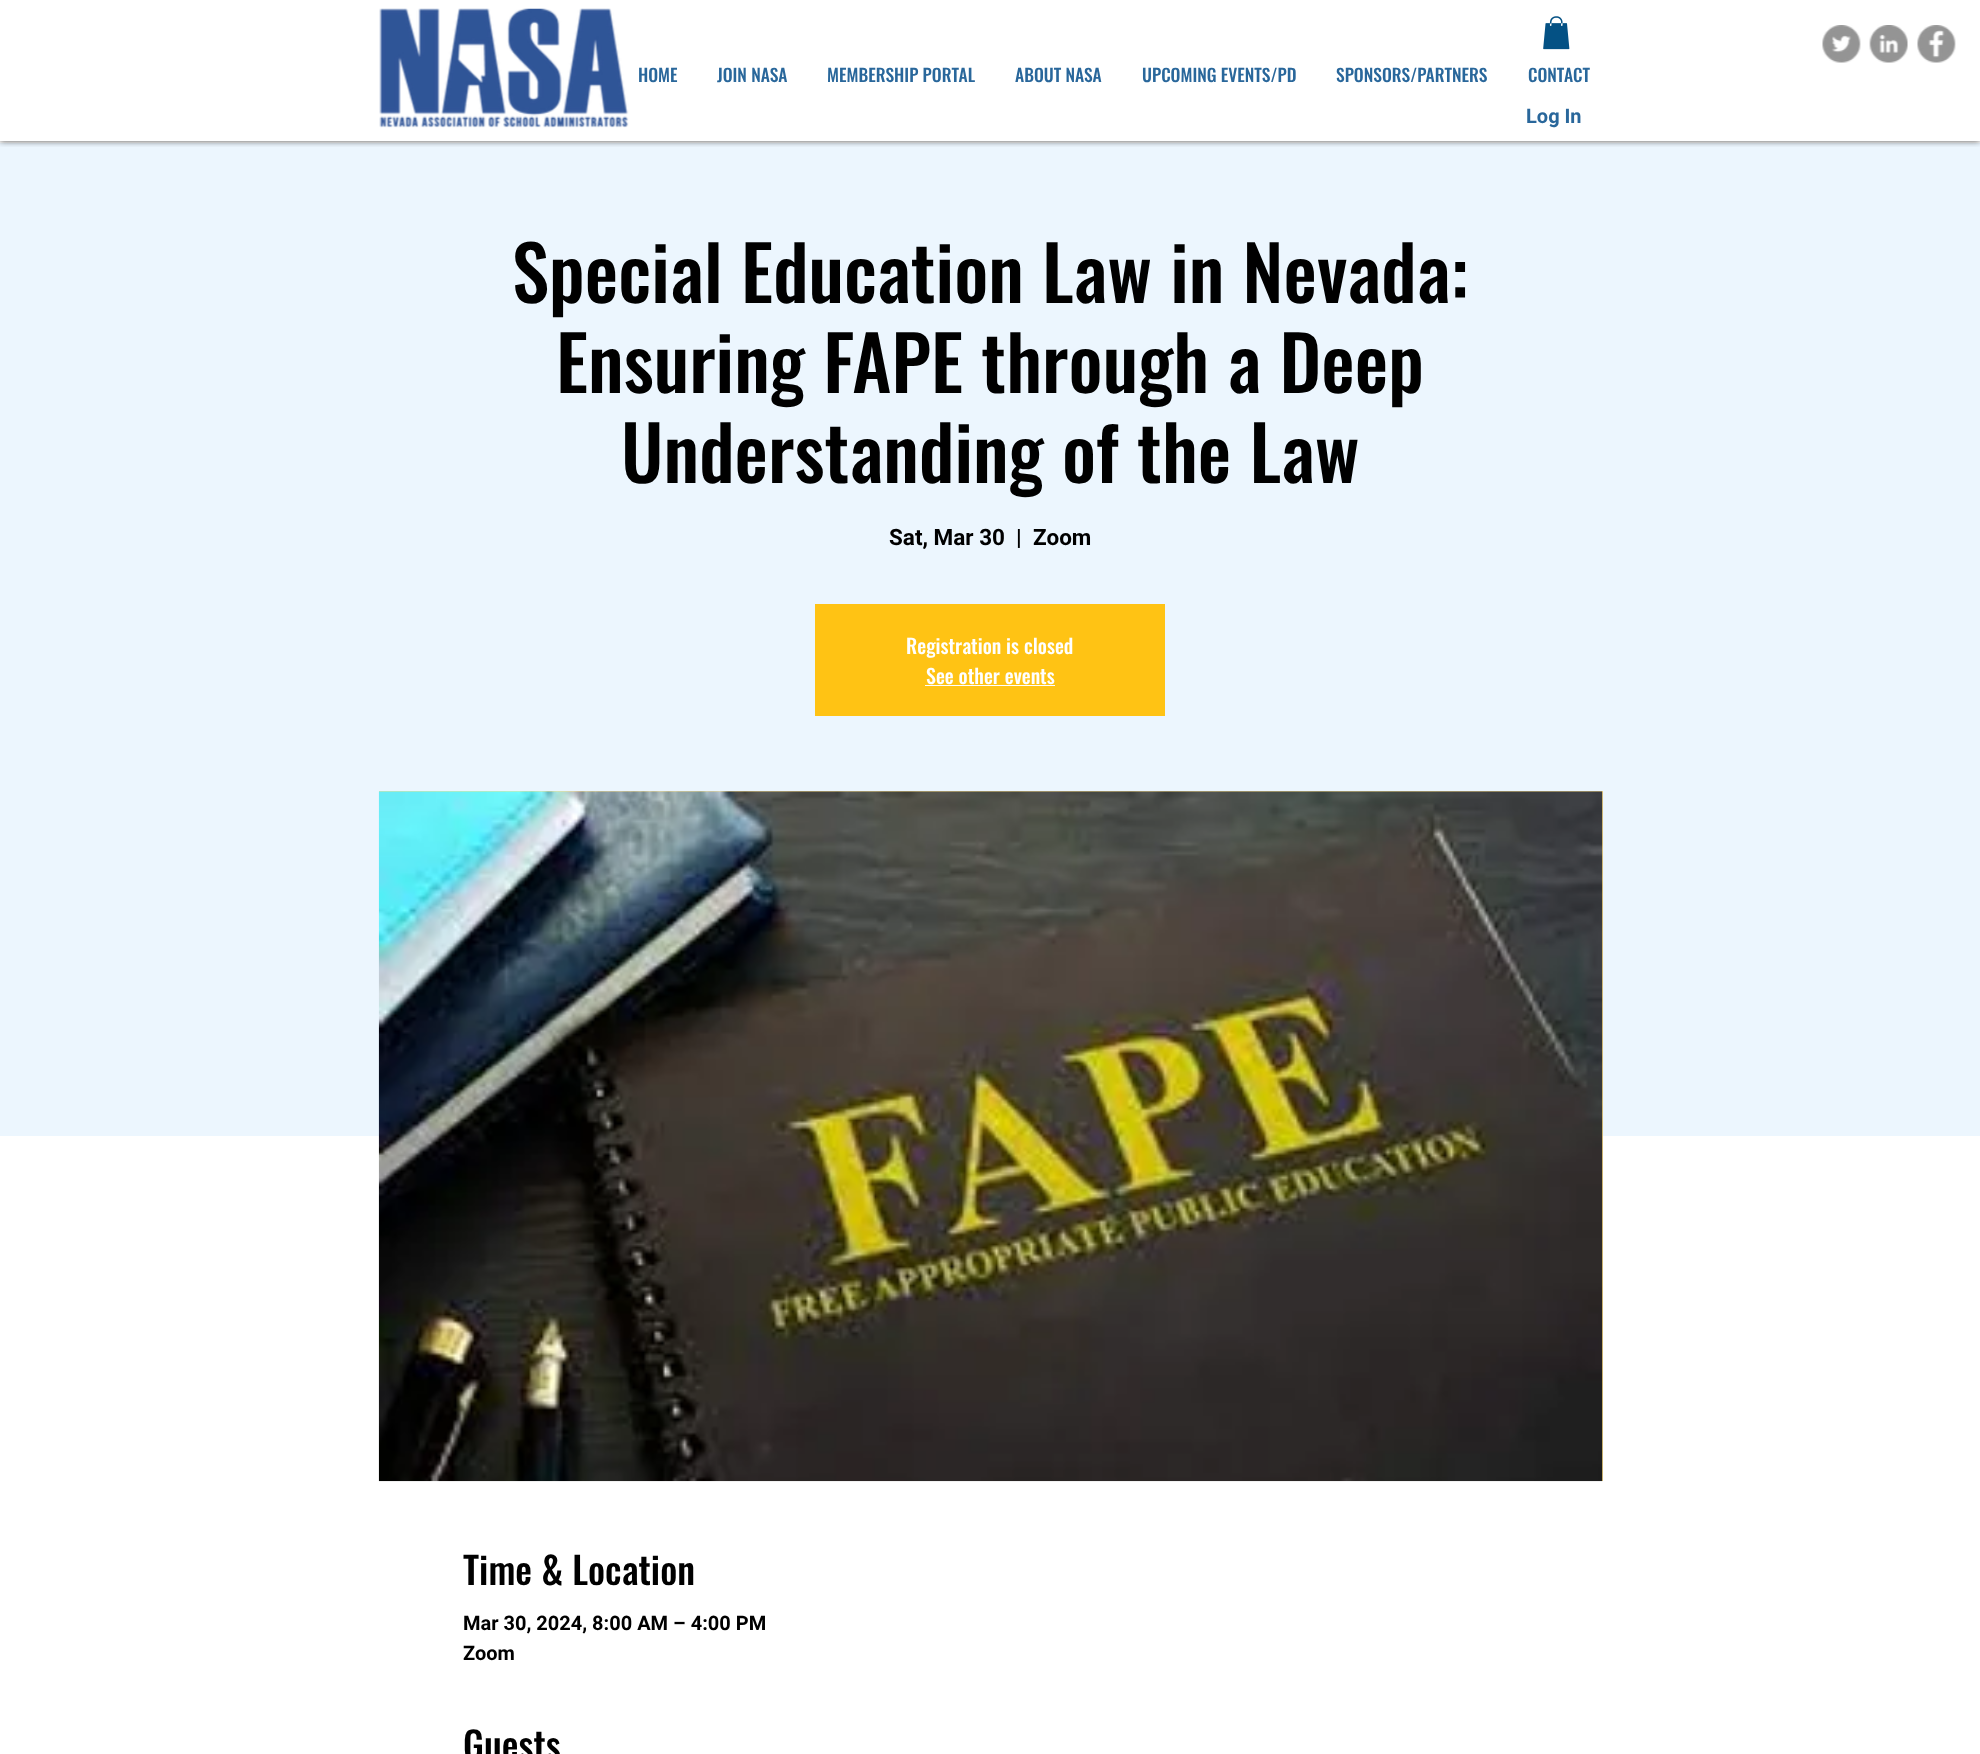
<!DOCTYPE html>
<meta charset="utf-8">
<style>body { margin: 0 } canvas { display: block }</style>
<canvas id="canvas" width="1980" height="1754"></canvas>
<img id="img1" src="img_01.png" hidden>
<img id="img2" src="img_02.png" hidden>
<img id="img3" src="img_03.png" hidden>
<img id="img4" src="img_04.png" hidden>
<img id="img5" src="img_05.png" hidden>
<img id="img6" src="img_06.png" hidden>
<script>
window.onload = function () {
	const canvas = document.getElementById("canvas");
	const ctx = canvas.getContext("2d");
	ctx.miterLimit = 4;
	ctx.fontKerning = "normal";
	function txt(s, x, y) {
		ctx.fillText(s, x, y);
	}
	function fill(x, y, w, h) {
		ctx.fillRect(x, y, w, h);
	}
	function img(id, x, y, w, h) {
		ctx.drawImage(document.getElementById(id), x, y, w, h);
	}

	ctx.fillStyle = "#FFFFFF";
	fill(0, 0, 1980, 1754);
	ctx.fillStyle = "#ECF6FE";
	fill(0, 143, 1980, 993);
	ctx.save();
	ctx.beginPath();
	ctx.rect(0, 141, 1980, 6);
	ctx.clip();
	ctx.fillStyle = "rgba(0, 0, 0, 0.7)";
	ctx.filter = "blur(3px)";
	ctx.beginPath();
	ctx.rect(0, 0, 1980, 141);
	ctx.fill();
	ctx.filter = "none";
	ctx.restore();
	img("img1", 1822, 25, 39, 38);
	img("img2", 1869, 25, 39, 38);
	img("img3", 1917, 25, 39, 38);
	img("img4", 379, 8, 250, 120);
	img("img5", 1543, 16, 27, 34);
	ctx.fillStyle = "#FFC314";
	fill(815, 604, 350, 112);
	ctx.fillStyle = "#FFFFFF";
	fill(925, 685, 130, 1);
	ctx.fillStyle = "#FFE18A";
	fill(379, 791, 1224, 690);
	img("img6", 378, 791, 1225, 691);
	ctx.font = "500 17.5px Oswald";
	ctx.fillStyle = "#29679B";
	txt("HOME", 638, 82);
	txt("JOIN NASA", 717, 82);
	txt("MEMBERSHIP PORTAL", 827, 82);
	txt("ABOUT NASA", 1015, 82);
	txt("UPCOMING EVENTS/PD", 1142, 82);
	txt("SPONSORS/PARTNERS", 1336, 82);
	txt("CONTACT", 1528, 82);
	ctx.font = "bold 20px Roboto";
	txt("Log In", 1526, 123);
	ctx.font = "500 75px Oswald";
	ctx.fillStyle = "#000000";
	txt("Special Education Law in Nevada:", 512, 303);
	txt("Ensuring FAPE through a Deep", 556, 393);
	txt("Understanding of the Law", 621, 483);
	ctx.font = "bold 22.5px Roboto";
	txt("Sat, Mar 30", 889, 545);
	txt("|", 1016, 545);
	txt("Zoom", 1033, 545);
	ctx.font = "500 20px Oswald";
	ctx.fillStyle = "#FFFFFF";
	txt("Registration is closed", 906, 654);
	txt("See other events", 926, 684);
	ctx.font = "500 37.5px Oswald";
	ctx.fillStyle = "#000000";
	txt("Time & Location", 463, 1585);
	ctx.font = "bold 20px Roboto";
	txt("Mar 30, 2024, 8:00 AM – 4:00 PM", 463, 1630);
	txt("Zoom", 463, 1660);
	ctx.font = "500 37.5px Oswald";
	txt("Guests", 463, 1760);
};
</script>
